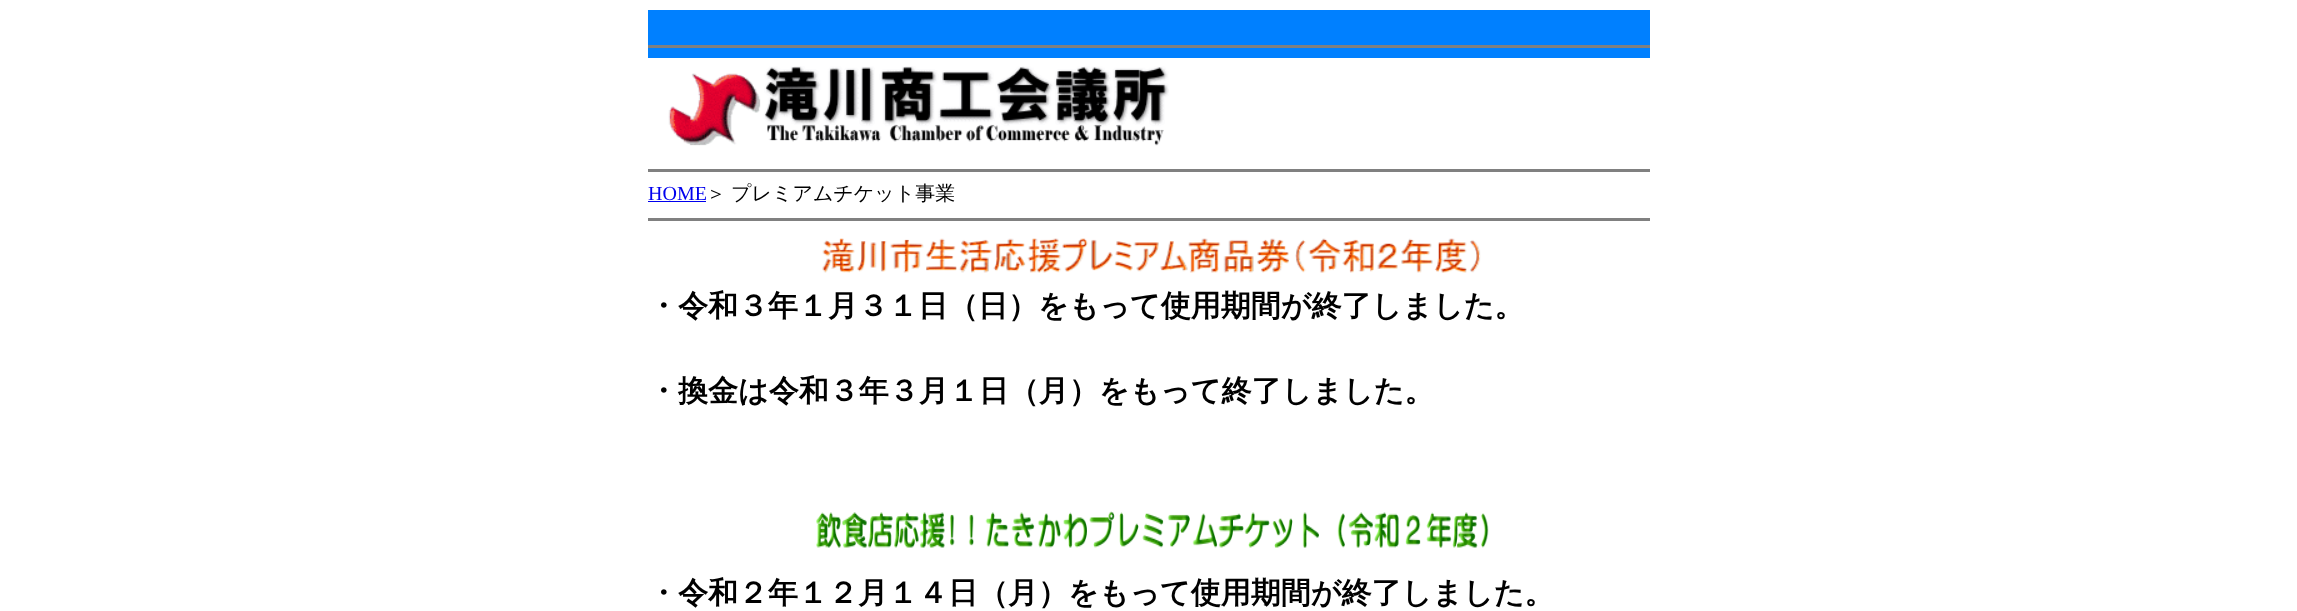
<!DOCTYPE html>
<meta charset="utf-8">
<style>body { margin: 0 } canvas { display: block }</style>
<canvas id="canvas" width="2297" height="611"></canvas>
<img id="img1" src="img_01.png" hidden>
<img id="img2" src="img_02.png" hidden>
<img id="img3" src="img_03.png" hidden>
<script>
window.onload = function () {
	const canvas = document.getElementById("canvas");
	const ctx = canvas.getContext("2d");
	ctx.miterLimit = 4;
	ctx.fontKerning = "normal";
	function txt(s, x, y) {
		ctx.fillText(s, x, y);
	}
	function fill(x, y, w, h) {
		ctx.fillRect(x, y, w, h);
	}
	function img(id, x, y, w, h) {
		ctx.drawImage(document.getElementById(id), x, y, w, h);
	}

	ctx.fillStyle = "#FFFFFF";
	fill(0, 0, 2297, 611);
	ctx.fillStyle = "#0080FF";
	fill(648, 10, 1002, 48);
	ctx.fillStyle = "#808080";
	fill(648, 45, 1002, 3);
	img("img1", 668, 66, 501, 80);
	fill(648, 169, 1002, 3);
	ctx.fillStyle = "#0000EE";
	fill(648, 201, 58, 1);
	ctx.fillStyle = "#808080";
	fill(648, 218, 1002, 3);
	img("img2", 822, 238, 659, 35);
	img("img3", 816, 511, 673, 37);
	ctx.font = "20px Liberation Serif";
	ctx.fillStyle = "#0000EE";
	txt("HOME", 648, 200);
	ctx.font = "500 20px WenQuanYi Zen Hei";
	ctx.fillStyle = "#000000";
	txt("＞", 706, 200);
	txt("プレミアムチケット事業", 731, 200);
	ctx.font = "bold 30px WenQuanYi Zen Hei";
	txt("・令和３年１月３１日（日）をもって使用期間が終了しました。", 648, 316);
	txt("・換金は令和３年３月１日（月）をもって終了しました。", 648, 401);
	txt("・令和２年１２月１４日（月）をもって使用期間が終了しました。", 648, 603);
};
</script>
